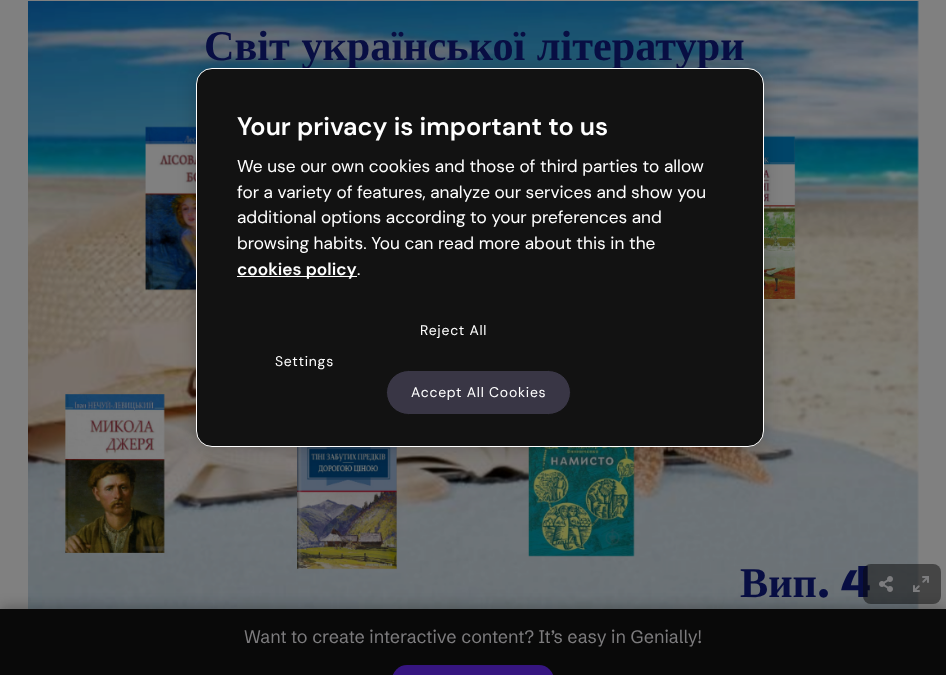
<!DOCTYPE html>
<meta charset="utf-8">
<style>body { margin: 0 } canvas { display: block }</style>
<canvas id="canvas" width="946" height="675"></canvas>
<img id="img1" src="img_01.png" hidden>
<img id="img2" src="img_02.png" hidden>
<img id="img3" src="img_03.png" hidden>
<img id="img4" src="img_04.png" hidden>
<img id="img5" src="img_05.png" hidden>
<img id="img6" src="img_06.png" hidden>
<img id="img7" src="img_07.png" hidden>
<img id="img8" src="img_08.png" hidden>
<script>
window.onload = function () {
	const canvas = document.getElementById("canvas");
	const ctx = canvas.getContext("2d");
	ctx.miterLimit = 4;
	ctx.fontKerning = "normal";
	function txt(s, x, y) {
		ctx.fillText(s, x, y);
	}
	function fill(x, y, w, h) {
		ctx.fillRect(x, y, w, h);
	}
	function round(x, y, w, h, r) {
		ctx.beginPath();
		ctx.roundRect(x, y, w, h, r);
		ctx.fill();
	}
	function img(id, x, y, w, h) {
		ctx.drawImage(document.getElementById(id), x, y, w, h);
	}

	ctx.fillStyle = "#808080";
	fill(0, 0, 946, 675);
	img("img1", 28, 1, 891, 608);
	img("img2", 145, 126, 51, 165);
	img("img3", 764, 136, 32, 163);
	img("img4", 65, 394, 100, 159);
	img("img5", 297, 447, 100, 123);
	img("img6", 528, 447, 107, 110);
	ctx.fillStyle = "rgba(0, 0, 0, 0.2)";
	ctx.filter = "blur(9px)";
	ctx.beginPath();
	ctx.roundRect(196, 68, 568, 379, 16);
	ctx.fill();
	ctx.filter = "none";
	ctx.wordSpacing = "1px";
	ctx.font = "bold 42.25px Liberation Serif";
	ctx.fillStyle = "#080E43";
	txt("Світ української літератури", 204, 60);
	ctx.wordSpacing = "0px";
	txt("Вип", 740, 597);
	ctx.font = "bold 42.25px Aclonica";
	txt(". 4", 817, 597);
	ctx.fillStyle = "rgba(9, 9, 9, 0.5)";
	round(863, 564, 78, 40, 8);
	img("img7", 879, 576, 14, 16);
	img("img8", 913, 576, 16, 16);
	ctx.fillStyle = "rgba(9, 9, 9, 0.3)";
	ctx.filter = "blur(6.5px)";
	ctx.beginPath();
	ctx.rect(0, 607, 946, 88);
	ctx.fill();
	ctx.filter = "none";
	ctx.fillStyle = "#090909";
	fill(0, 609, 946, 66);
	ctx.font = "18px Schibsted Grotesk";
	ctx.fillStyle = "#7D7C7E";
	txt("Want to create interactive content? It’s easy in Genially!", 244, 643);
	ctx.fillStyle = "#361580";
	round(392, 665, 162, 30, 20);
	ctx.fillStyle = "#121212";
	ctx.beginPath();
	ctx.roundRect(196.5, 68.5, 567, 378, 15.5);
	ctx.fill();
	ctx.strokeStyle = "#FFFFFF";
	ctx.stroke();
	ctx.font = "600 25.25px DM Sans";
	ctx.fillStyle = "#FFFFFF";
	txt("Your privacy is important to us", 237, 135);
	ctx.font = "17.25px DM Sans";
	txt("We use our own cookies and those of third parties to allow", 237, 172);
	txt("for a variety of features, analyze our services and show you", 237, 198);
	txt("additional options according to your preferences and", 237, 223);
	txt("browsing habits. You can read more about this in the", 237, 249);
	fill(237, 276, 120, 1);
	ctx.font = "600 17.25px DM Sans";
	txt("cookies policy", 237, 275);
	ctx.font = "17.25px DM Sans";
	txt(".", 357, 275);
	ctx.letterSpacing = "0.75px";
	ctx.font = "14px DM Sans";
	txt("Settings", 275, 366);
	txt("Reject All", 420, 335);
	ctx.fillStyle = "#393645";
	ctx.beginPath();
	ctx.roundRect(386.5, 370.5, 184, 44, 22);
	ctx.fill();
	ctx.strokeStyle = "#121212";
	ctx.stroke();
	ctx.fillStyle = "#FFFFFF";
	txt("Accept All Cookies", 411, 397);
};
</script>
